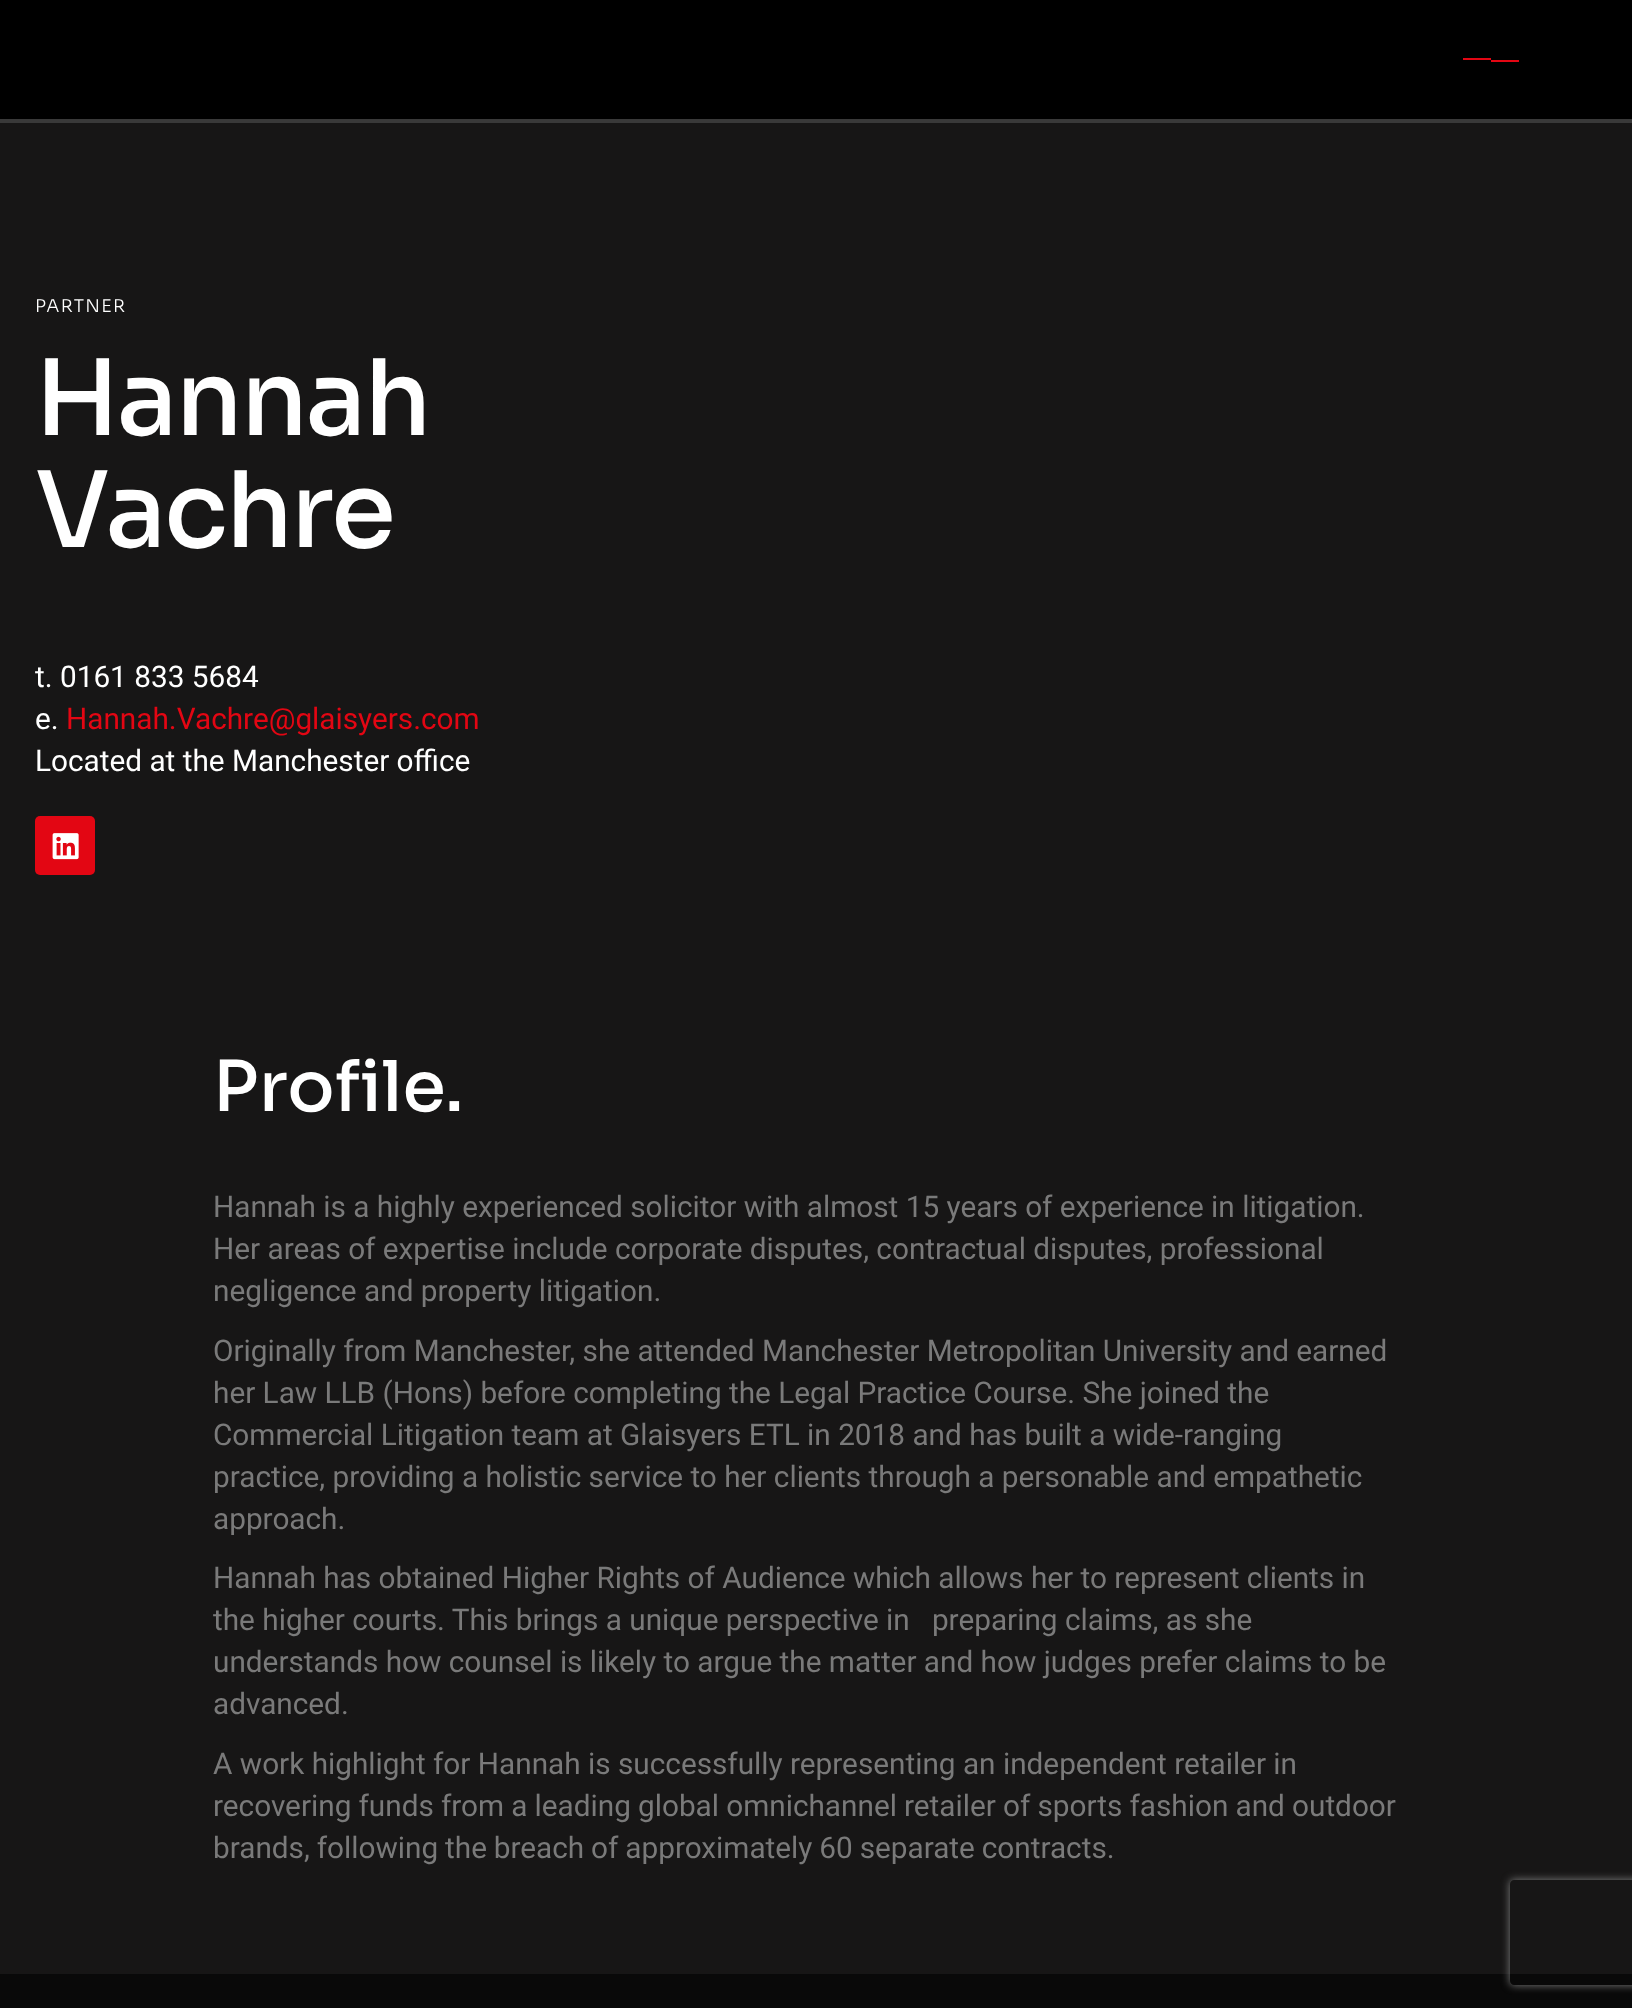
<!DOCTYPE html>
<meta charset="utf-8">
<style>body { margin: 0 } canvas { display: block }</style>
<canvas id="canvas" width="1632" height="2008"></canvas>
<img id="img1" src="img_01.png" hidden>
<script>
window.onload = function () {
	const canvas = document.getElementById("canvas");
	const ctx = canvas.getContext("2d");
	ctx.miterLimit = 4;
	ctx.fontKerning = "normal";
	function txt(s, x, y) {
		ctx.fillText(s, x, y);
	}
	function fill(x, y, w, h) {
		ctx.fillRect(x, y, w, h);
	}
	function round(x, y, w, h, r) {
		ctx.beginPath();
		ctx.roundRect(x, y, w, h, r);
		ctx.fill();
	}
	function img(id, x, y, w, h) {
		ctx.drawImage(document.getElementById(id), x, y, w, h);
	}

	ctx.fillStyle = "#171616";
	fill(0, 0, 1632, 2008);
	ctx.fillStyle = "#000000";
	fill(0, 0, 1632, 119);
	ctx.fillStyle = "#393939";
	fill(0, 119, 1632, 4);
	ctx.fillStyle = "#E30613";
	fill(1491, 60, 28, 2);
	fill(1463, 58, 28, 2);
	round(35, 816, 60, 59, 5);
	img("img1", 52, 833, 27, 27);
	ctx.fillStyle = "#090909";
	fill(0, 1974, 1632, 34);
	ctx.save();
	ctx.beginPath();
	ctx.moveTo(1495, 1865);
	ctx.lineTo(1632, 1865);
	ctx.lineTo(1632, 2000);
	ctx.lineTo(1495, 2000);
	ctx.closePath();
	ctx.moveTo(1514, 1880);
	ctx.lineTo(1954, 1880);
	ctx.bezierCurveTo(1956, 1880, 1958, 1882, 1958, 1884);
	ctx.lineTo(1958, 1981);
	ctx.bezierCurveTo(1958, 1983, 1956, 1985, 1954, 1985);
	ctx.lineTo(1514, 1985);
	ctx.bezierCurveTo(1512, 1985, 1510, 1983, 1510, 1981);
	ctx.lineTo(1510, 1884);
	ctx.bezierCurveTo(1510, 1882, 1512, 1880, 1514, 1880);
	ctx.closePath();
	ctx.clip("evenodd");
	ctx.fillStyle = "#808080";
	ctx.filter = "blur(4.5px)";
	ctx.beginPath();
	ctx.roundRect(1510, 1880, 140, 105, 4);
	ctx.fill();
	ctx.filter = "none";
	ctx.restore();
	ctx.letterSpacing = "1.25px";
	ctx.font = "300 17.5px Sora";
	ctx.fillStyle = "#FFFFFF";
	txt("PARTNER", 35, 312);
	ctx.letterSpacing = "-2.5px";
	ctx.font = "500 105px Sora";
	txt("Hannah", 35, 435);
	txt("Vachre", 35, 547);
	ctx.letterSpacing = "0px";
	ctx.font = "29.75px Roboto";
	txt("t. 0161 833 5684", 35, 687);
	txt("e.", 35, 729);
	ctx.fillStyle = "#E30613";
	txt("Hannah.Vachre@glaisyers.com", 66, 729);
	ctx.fillStyle = "#FFFFFF";
	txt("Located at the Manchester office", 35, 771);
	ctx.font = "500 70px Sora";
	txt("Profile.", 213, 1111);
	ctx.font = "29.75px Roboto";
	ctx.fillStyle = "#7A7A7A";
	txt("Hannah is a highly experienced solicitor with almost 15 years of experience in litigation.", 213, 1217);
	txt("Her areas of expertise include corporate disputes, contractual disputes, professional", 213, 1259);
	txt("negligence and property litigation.", 213, 1301);
	txt("Originally from Manchester, she attended Manchester Metropolitan University and earned", 213, 1361);
	txt("her Law LLB (Hons) before completing the Legal Practice Course. She joined the", 213, 1403);
	txt("Commercial Litigation team at Glaisyers ETL in 2018 and has built a wide-ranging", 213, 1445);
	txt("practice, providing a holistic service to her clients through a personable and empathetic", 213, 1487);
	txt("approach.", 213, 1529);
	txt("Hannah has obtained Higher Rights of Audience which allows her to represent clients in", 213, 1588);
	txt("the higher courts. This brings a unique perspective in   preparing claims, as she", 213, 1630);
	txt("understands how counsel is likely to argue the matter and how judges prefer claims to be", 213, 1672);
	txt("advanced.", 213, 1714);
	txt("A work highlight for Hannah is successfully representing an independent retailer in", 213, 1774);
	ctx.wordSpacing = "-0.25px";
	txt("recovering funds from a leading global omnichannel retailer of sports fashion and outdoor", 213, 1816);
	ctx.wordSpacing = "-0.5px";
	txt("brands, following the breach of approximately 60 separate contracts.", 213, 1858);
};
</script>
